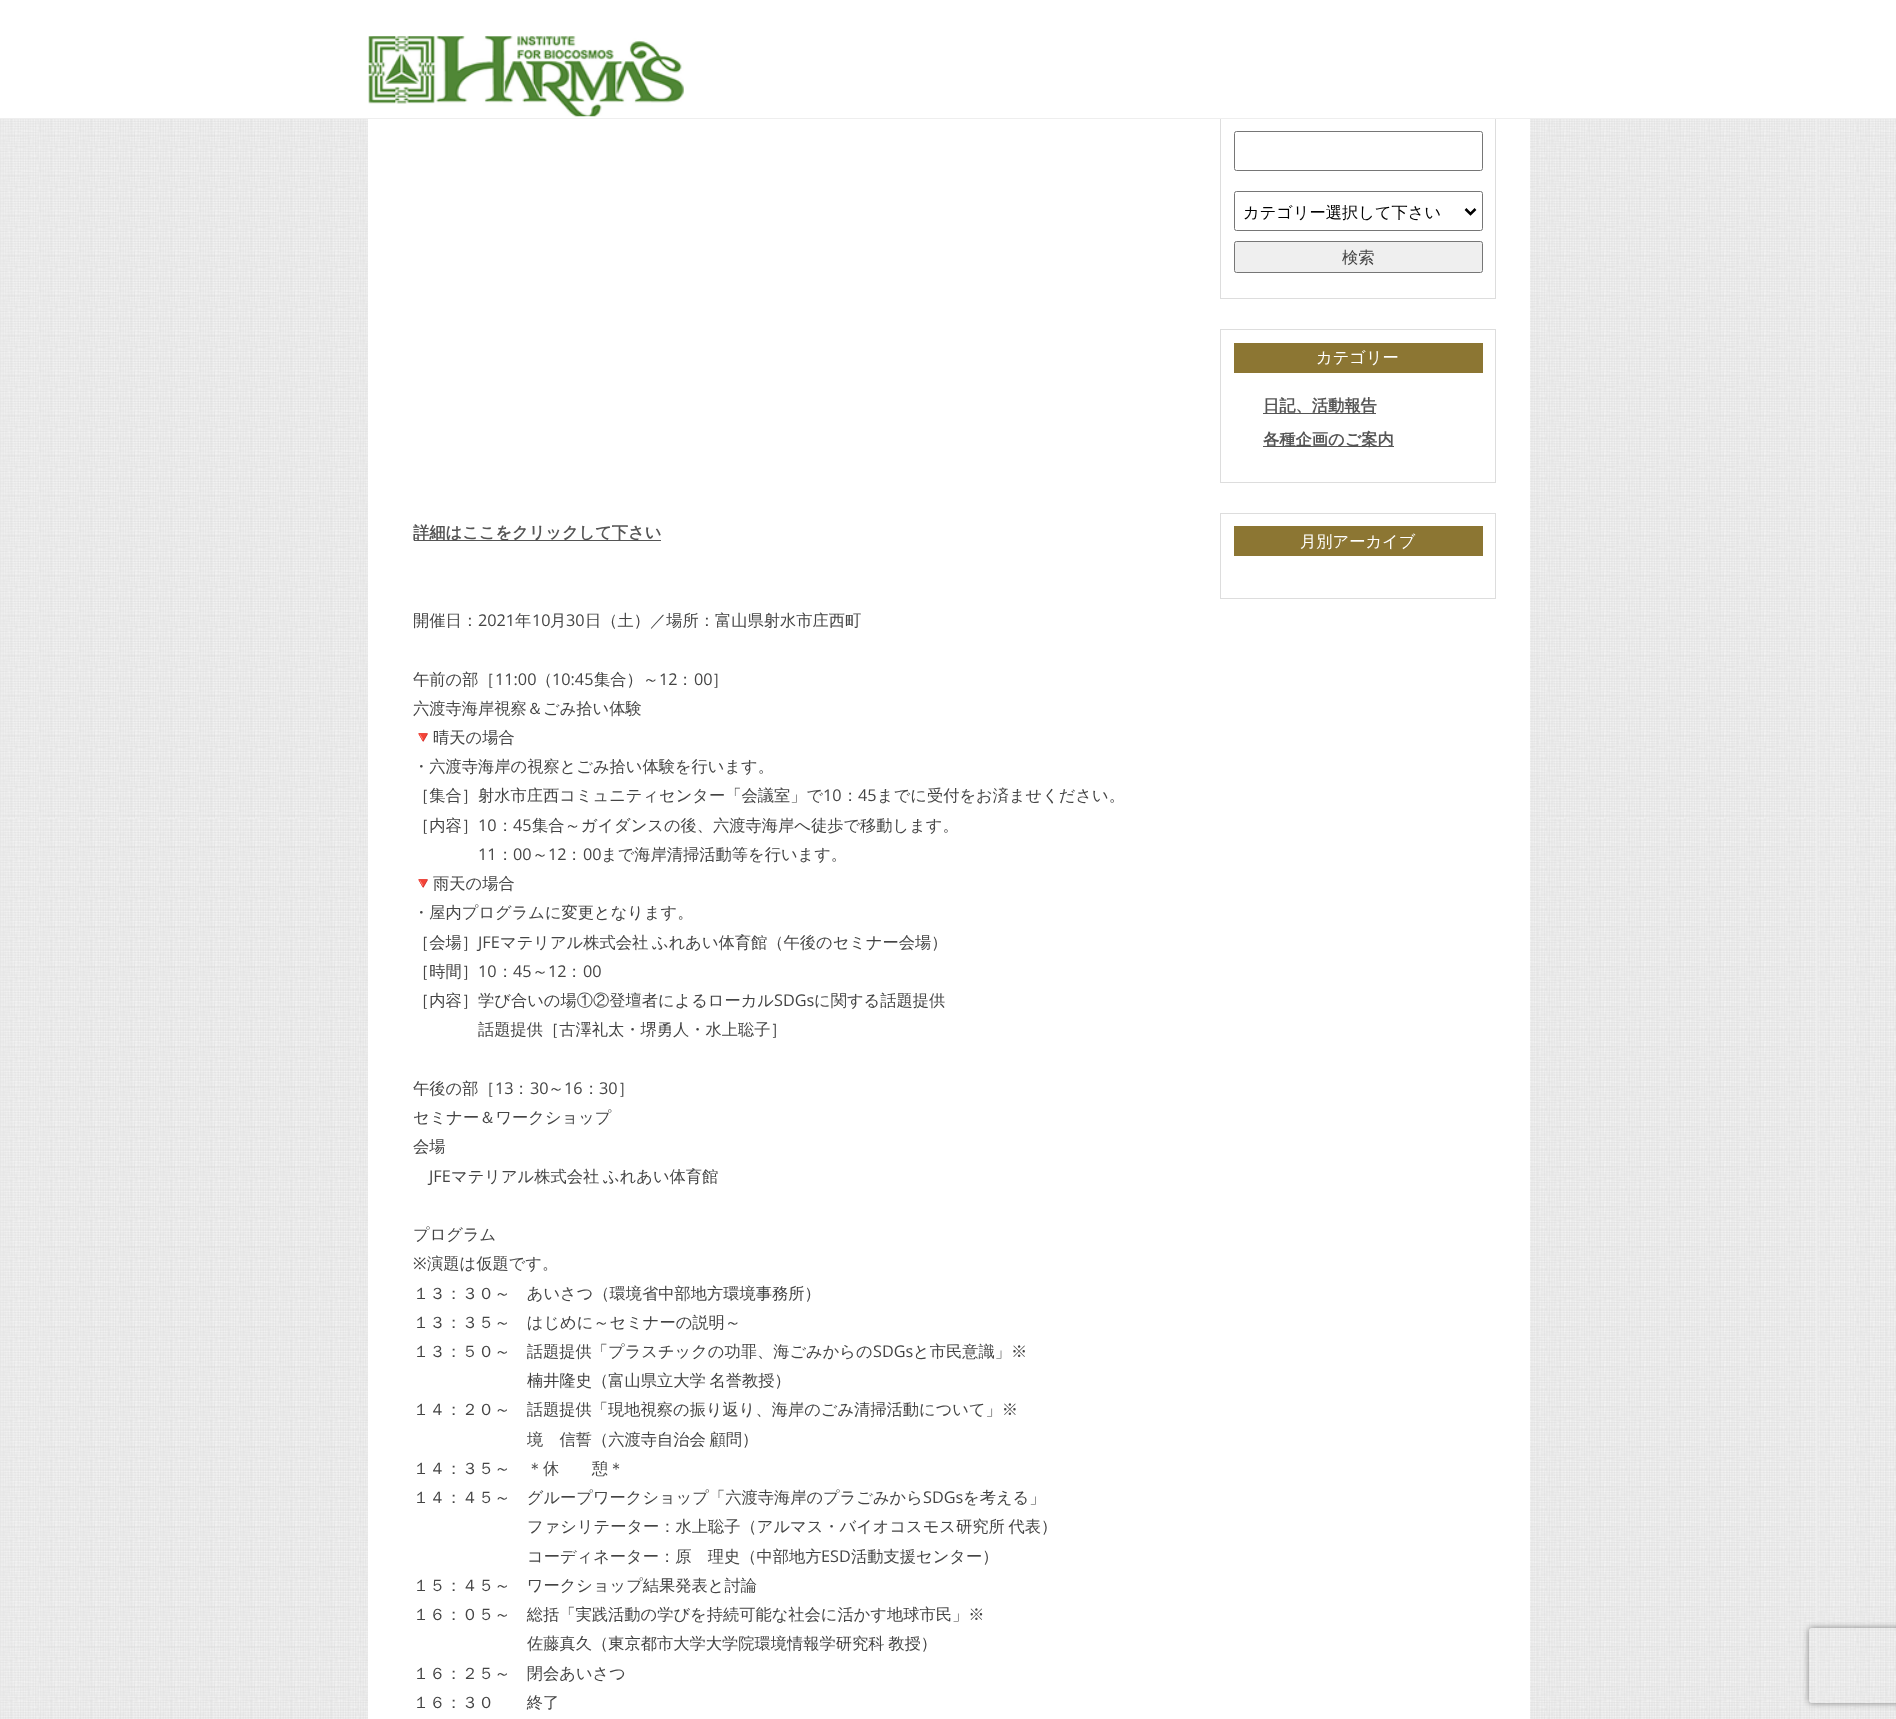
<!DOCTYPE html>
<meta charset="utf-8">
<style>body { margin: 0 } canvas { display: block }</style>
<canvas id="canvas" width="1896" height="1719"></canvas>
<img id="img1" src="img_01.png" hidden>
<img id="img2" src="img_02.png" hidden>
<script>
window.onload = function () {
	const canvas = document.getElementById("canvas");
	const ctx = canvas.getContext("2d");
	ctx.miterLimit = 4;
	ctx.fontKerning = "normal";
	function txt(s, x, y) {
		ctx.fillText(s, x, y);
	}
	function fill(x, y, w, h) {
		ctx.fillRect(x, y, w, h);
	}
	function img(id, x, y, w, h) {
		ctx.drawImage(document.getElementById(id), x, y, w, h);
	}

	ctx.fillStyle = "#FFFFFF";
	fill(0, 0, 1896, 1719);
	img("img1", 0, 119, 1896, 1600);
	fill(368, 119, 1162, 1600);
	ctx.strokeStyle = "#DDDDDD";
	ctx.strokeRect(1220.5, 63.5, 275, 235);
	fill(1220, 63, 276, 55);
	ctx.fillStyle = "#EEEEEE";
	fill(0, 118, 1896, 1);
	img("img2", 368, 36, 316, 81);
	ctx.beginPath();
	ctx.roundRect(1234.5, 131.5, 248, 39, 2);
	ctx.strokeStyle = "#767676";
	ctx.stroke();
	ctx.beginPath();
	ctx.roundRect(1234.5, 191.5, 248, 39, 2);
	ctx.stroke();
	ctx.beginPath();
	ctx.moveTo(1465.5, 209);
	ctx.lineTo(1470.5, 214);
	ctx.lineTo(1475.5, 209);
	ctx.strokeStyle = "#000000";
	ctx.lineWidth = 2.5;
	ctx.stroke();
	ctx.fillStyle = "#EFEFEF";
	ctx.beginPath();
	ctx.roundRect(1234.5, 241.5, 248, 31, 2);
	ctx.fill();
	ctx.strokeStyle = "#767676";
	ctx.lineWidth = 1;
	ctx.stroke();
	ctx.strokeStyle = "#DDDDDD";
	ctx.strokeRect(1220.5, 329.5, 275, 153);
	ctx.fillStyle = "#8C7633";
	fill(1234, 343, 249, 30);
	ctx.fillStyle = "#555555";
	fill(1263, 413, 113, 1);
	fill(1263, 446, 131, 1);
	ctx.strokeRect(1220.5, 513.5, 275, 85);
	ctx.fillStyle = "#8C7633";
	fill(1234, 526, 249, 30);
	ctx.fillStyle = "#555555";
	fill(414, 540, 247, 1);
	ctx.save();
	ctx.beginPath();
	ctx.moveTo(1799, 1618);
	ctx.lineTo(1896, 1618);
	ctx.lineTo(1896, 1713);
	ctx.lineTo(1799, 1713);
	ctx.closePath();
	ctx.moveTo(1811.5, 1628);
	ctx.lineTo(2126.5, 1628);
	ctx.bezierCurveTo(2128, 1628, 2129, 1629, 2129, 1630.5);
	ctx.lineTo(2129, 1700.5);
	ctx.bezierCurveTo(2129, 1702, 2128, 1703, 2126.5, 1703);
	ctx.lineTo(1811.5, 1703);
	ctx.bezierCurveTo(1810, 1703, 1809, 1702, 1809, 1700.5);
	ctx.lineTo(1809, 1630.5);
	ctx.bezierCurveTo(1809, 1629, 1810, 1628, 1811.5, 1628);
	ctx.closePath();
	ctx.clip("evenodd");
	ctx.fillStyle = "#808080";
	ctx.filter = "blur(3px)";
	ctx.beginPath();
	ctx.roundRect(1809, 1628, 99, 75, 2.5);
	ctx.fill();
	ctx.filter = "none";
	ctx.restore();
	ctx.font = "500 16.25px WenQuanYi Zen Hei";
	ctx.fillStyle = "#000000";
	txt("カテゴリー選択して下さい", 1243, 218);
	ctx.fillStyle = "#444444";
	txt("検索", 1342, 263);
	ctx.fillStyle = "#FFFFFF";
	txt("カテゴリー", 1316, 363);
	ctx.font = "bold 16.25px WenQuanYi Zen Hei";
	ctx.fillStyle = "#555555";
	txt("日記、活動報告", 1263, 411);
	txt("各種企画のご案内", 1263, 445);
	ctx.font = "500 16.25px WenQuanYi Zen Hei";
	ctx.fillStyle = "#FFFFFF";
	txt("月別アーカイブ", 1300, 547);
	ctx.font = "bold 16.25px WenQuanYi Zen Hei";
	ctx.fillStyle = "#555555";
	txt("詳細はここをクリックして下さい", 413, 538);
	ctx.font = "500 16.25px WenQuanYi Zen Hei";
	ctx.fillStyle = "#444444";
	txt("開催日：", 413, 626);
	ctx.font = "16.25px Open Sans";
	txt("2021", 478, 626);
	ctx.font = "500 16.25px WenQuanYi Zen Hei";
	txt("年", 515, 626);
	ctx.font = "16.25px Open Sans";
	txt("10", 532, 626);
	ctx.font = "500 16.25px WenQuanYi Zen Hei";
	txt("月", 550, 626);
	ctx.font = "16.25px Open Sans";
	txt("30", 566, 626);
	ctx.font = "500 16.25px WenQuanYi Zen Hei";
	txt("日（土）／場所：富山県射水市庄西町", 585, 626);
	txt("午前の部［", 413, 685);
	ctx.font = "16.25px Open Sans";
	txt("11:00", 495, 685);
	ctx.font = "500 16.25px WenQuanYi Zen Hei";
	txt("（", 536, 685);
	ctx.font = "16.25px Open Sans";
	txt("10:45", 552, 685);
	ctx.font = "500 16.25px WenQuanYi Zen Hei";
	txt("集合）～", 594, 685);
	ctx.font = "16.25px Open Sans";
	txt("12", 659, 685);
	ctx.font = "500 16.25px WenQuanYi Zen Hei";
	txt("：", 677, 685);
	ctx.font = "16.25px Open Sans";
	txt("00", 694, 685);
	ctx.font = "500 16.25px WenQuanYi Zen Hei";
	txt("］", 712, 685);
	txt("六渡寺海岸視察＆ごみ拾い体験", 413, 714);
	ctx.font = "16.25px Noto Color Emoji";
	txt("🔻", 413, 743);
	ctx.font = "500 16.25px WenQuanYi Zen Hei";
	txt("晴天の場合", 433, 743);
	txt("・六渡寺海岸の視察とごみ拾い体験を行います。", 413, 772);
	txt("［集合］射水市庄西コミュニティセンター「会議室」で", 413, 801);
	ctx.font = "16.25px Open Sans";
	txt("10", 823, 801);
	ctx.font = "500 16.25px WenQuanYi Zen Hei";
	txt("：", 842, 801);
	ctx.font = "16.25px Open Sans";
	txt("45", 858, 801);
	ctx.font = "500 16.25px WenQuanYi Zen Hei";
	txt("までに受付をお済ませください。", 877, 801);
	txt("［内容］", 413, 831);
	ctx.font = "16.25px Open Sans";
	txt("10", 478, 831);
	ctx.font = "500 16.25px WenQuanYi Zen Hei";
	txt("：", 497, 831);
	ctx.font = "16.25px Open Sans";
	txt("45", 513, 831);
	ctx.font = "500 16.25px WenQuanYi Zen Hei";
	txt("集合～ガイダンスの後、六渡寺海岸へ徒歩で移動します。", 532, 831);
	ctx.font = "16.25px Open Sans";
	txt("11", 478, 860);
	ctx.font = "500 16.25px WenQuanYi Zen Hei";
	txt("：", 497, 860);
	ctx.font = "16.25px Open Sans";
	txt("00", 513, 860);
	ctx.font = "500 16.25px WenQuanYi Zen Hei";
	txt("～", 532, 860);
	ctx.font = "16.25px Open Sans";
	txt("12", 548, 860);
	ctx.font = "500 16.25px WenQuanYi Zen Hei";
	txt("：", 566, 860);
	ctx.font = "16.25px Open Sans";
	txt("00", 583, 860);
	ctx.font = "500 16.25px WenQuanYi Zen Hei";
	txt("まで海岸清掃活動等を行います。", 601, 860);
	ctx.font = "16.25px Noto Color Emoji";
	txt("🔻", 413, 889);
	ctx.font = "500 16.25px WenQuanYi Zen Hei";
	txt("雨天の場合", 433, 889);
	txt("・屋内プログラムに変更となります。", 413, 918);
	txt("［会場］", 413, 948);
	ctx.font = "16.25px Open Sans";
	txt("JFE", 478, 948);
	ctx.wordSpacing = "-1px";
	ctx.font = "500 16.25px WenQuanYi Zen Hei";
	txt("マテリアル株式会社 ふれあい体育館（午後のセミナー会場）", 500, 948);
	ctx.wordSpacing = "0px";
	txt("［時間］", 413, 977);
	ctx.font = "16.25px Open Sans";
	txt("10", 478, 977);
	ctx.font = "500 16.25px WenQuanYi Zen Hei";
	txt("：", 497, 977);
	ctx.font = "16.25px Open Sans";
	txt("45", 513, 977);
	ctx.font = "500 16.25px WenQuanYi Zen Hei";
	txt("～", 532, 977);
	ctx.font = "16.25px Open Sans";
	txt("12", 548, 977);
	ctx.font = "500 16.25px WenQuanYi Zen Hei";
	txt("：", 566, 977);
	ctx.font = "16.25px Open Sans";
	txt("00", 583, 977);
	ctx.font = "500 16.25px WenQuanYi Zen Hei";
	txt("［内容］学び合いの場①②登壇者によるローカル", 413, 1006);
	ctx.font = "16.25px Open Sans";
	txt("SDGs", 774, 1006);
	ctx.font = "500 16.25px WenQuanYi Zen Hei";
	txt("に関する話題提供", 814, 1006);
	txt("話題提供［古澤礼太・堺勇人・水上聡子］", 478, 1035);
	txt("午後の部［", 413, 1094);
	ctx.font = "16.25px Open Sans";
	txt("13", 495, 1094);
	ctx.font = "500 16.25px WenQuanYi Zen Hei";
	txt("：", 513, 1094);
	ctx.font = "16.25px Open Sans";
	txt("30", 530, 1094);
	ctx.font = "500 16.25px WenQuanYi Zen Hei";
	txt("～", 548, 1094);
	ctx.font = "16.25px Open Sans";
	txt("16", 564, 1094);
	ctx.font = "500 16.25px WenQuanYi Zen Hei";
	txt("：", 583, 1094);
	ctx.font = "16.25px Open Sans";
	txt("30", 599, 1094);
	ctx.font = "500 16.25px WenQuanYi Zen Hei";
	txt("］", 618, 1094);
	txt("セミナー＆ワークショップ", 413, 1123);
	txt("会場", 413, 1152);
	ctx.font = "16.25px Open Sans";
	txt("JFE", 429, 1182);
	ctx.wordSpacing = "-1px";
	ctx.font = "500 16.25px WenQuanYi Zen Hei";
	txt("マテリアル株式会社 ふれあい体育館", 451, 1182);
	ctx.wordSpacing = "0px";
	txt("プログラム", 413, 1240);
	ctx.font = "16.25px Noto Sans";
	txt("※", 413, 1269);
	ctx.font = "500 16.25px WenQuanYi Zen Hei";
	txt("演題は仮題です。", 427, 1269);
	txt("１３：３０～　あいさつ（環境省中部地方環境事務所）", 413, 1299);
	txt("１３：３５～　はじめに～セミナーの説明～", 413, 1328);
	txt("１３：５０～　話題提供「プラスチックの功罪、海ごみからの", 413, 1357);
	ctx.font = "16.25px Open Sans";
	txt("SDGs", 873, 1357);
	ctx.font = "500 16.25px WenQuanYi Zen Hei";
	txt("と市民意識」※", 913, 1357);
	ctx.wordSpacing = "-1px";
	txt("楠井隆史（富山県立大学 名誉教授）", 527, 1386);
	ctx.wordSpacing = "0px";
	txt("１４：２０～　話題提供「現地視察の振り返り、海岸のごみ清掃活動について」※", 413, 1415);
	ctx.wordSpacing = "-1px";
	txt("境　信誓（六渡寺自治会 顧問）", 527, 1445);
	ctx.wordSpacing = "0px";
	txt("１４：３５～　＊休　　憩＊", 413, 1474);
	txt("１４：４５～　グループワークショップ「六渡寺海岸のプラごみから", 413, 1503);
	ctx.font = "16.25px Open Sans";
	txt("SDGs", 923, 1503);
	ctx.font = "500 16.25px WenQuanYi Zen Hei";
	txt("を考える」", 963, 1503);
	ctx.wordSpacing = "-1px";
	txt("ファシリテーター：水上聡子（アルマス・バイオコスモス研究所 代表）", 527, 1532);
	ctx.wordSpacing = "0px";
	txt("コーディネーター：原　理史（中部地方", 527, 1562);
	ctx.font = "16.25px Open Sans";
	txt("ESD", 821, 1562);
	ctx.font = "500 16.25px WenQuanYi Zen Hei";
	txt("活動支援センター）", 851, 1562);
	txt("１５：４５～　ワークショップ結果発表と討論", 413, 1591);
	txt("１６：０５～　総括「実践活動の学びを持続可能な社会に活かす地球市民」※", 413, 1620);
	ctx.wordSpacing = "-1px";
	txt("佐藤真久（東京都市大学大学院環境情報学研究科 教授）", 527, 1649);
	ctx.wordSpacing = "0px";
	txt("１６：２５～　閉会あいさつ", 413, 1679);
	txt("１６：３０　　終了", 413, 1708);
};
</script>
